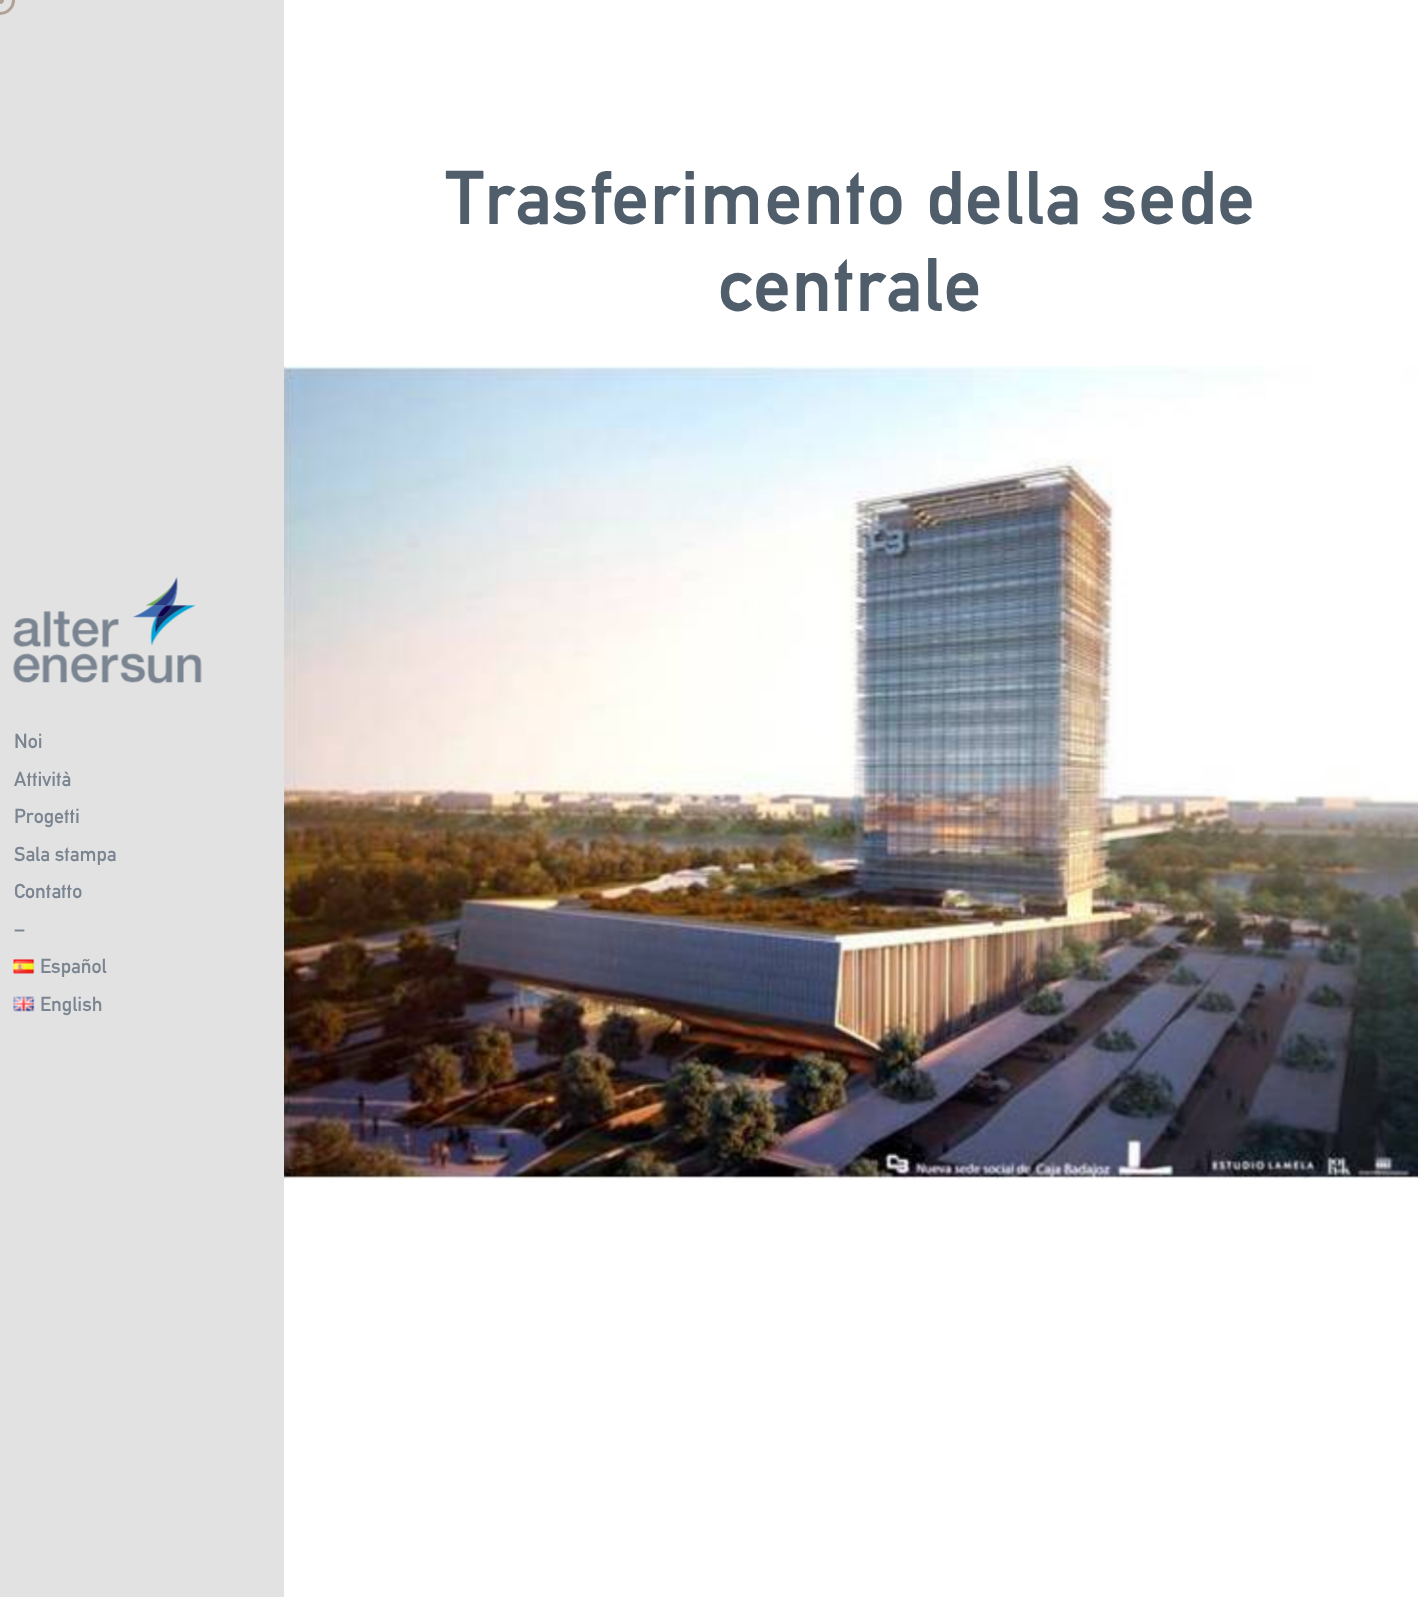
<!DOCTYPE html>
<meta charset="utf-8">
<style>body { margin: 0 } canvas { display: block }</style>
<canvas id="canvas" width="1418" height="1597"></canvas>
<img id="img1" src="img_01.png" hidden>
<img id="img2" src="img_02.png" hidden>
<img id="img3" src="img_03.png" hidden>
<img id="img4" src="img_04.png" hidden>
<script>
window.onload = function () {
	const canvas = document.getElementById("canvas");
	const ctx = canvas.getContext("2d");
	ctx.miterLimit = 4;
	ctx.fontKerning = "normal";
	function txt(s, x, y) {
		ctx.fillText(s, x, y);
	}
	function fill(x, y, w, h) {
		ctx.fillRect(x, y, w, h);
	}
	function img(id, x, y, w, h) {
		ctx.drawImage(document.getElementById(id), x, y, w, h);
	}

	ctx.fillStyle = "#FFFFFF";
	fill(0, 0, 1418, 1597);
	ctx.fillStyle = "#E2E2E2";
	fill(0, 0, 284, 1597);
	ctx.fillStyle = "#AFA295";
	ctx.beginPath();
	ctx.arc(0, 0, 4, 0, Math.PI * 2);
	ctx.fill();
	ctx.beginPath();
	ctx.arc(0, 0, 13.5, 0, Math.PI * 2);
	ctx.strokeStyle = "#AFA295";
	ctx.lineWidth = 3;
	ctx.stroke();
	img("img1", 284, 366, 1134, 813);
	img("img2", 13, 577, 189, 107);
	img("img3", 13, 959, 22, 15);
	img("img4", 13, 996, 22, 16);
	ctx.letterSpacing = "1.25px";
	ctx.font = "75px 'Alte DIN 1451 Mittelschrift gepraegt'";
	ctx.fillStyle = "#505D6A";
	txt("Trasferimento della sede", 446, 224);
	txt("centrale", 719, 311);
	ctx.letterSpacing = "0px";
	ctx.font = "20px 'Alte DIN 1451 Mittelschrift'";
	ctx.fillStyle = "#7A8591";
	txt("Noi", 14, 748);
	txt("Attività", 14, 786);
	txt("Progetti", 14, 823);
	txt("Sala stampa", 14, 861);
	txt("Contatto", 14, 898);
	txt("–", 14, 936);
	txt("Español", 40, 973);
	txt("English", 40, 1011);
};
</script>
